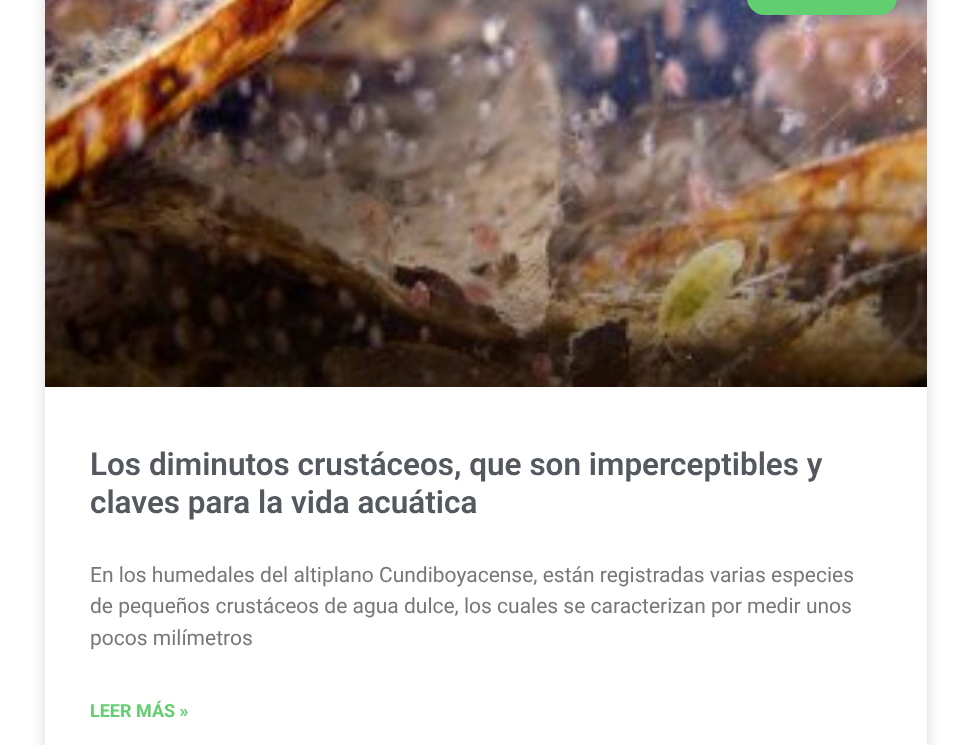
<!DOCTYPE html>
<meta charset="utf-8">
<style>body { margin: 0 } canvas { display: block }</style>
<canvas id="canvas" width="972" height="745"></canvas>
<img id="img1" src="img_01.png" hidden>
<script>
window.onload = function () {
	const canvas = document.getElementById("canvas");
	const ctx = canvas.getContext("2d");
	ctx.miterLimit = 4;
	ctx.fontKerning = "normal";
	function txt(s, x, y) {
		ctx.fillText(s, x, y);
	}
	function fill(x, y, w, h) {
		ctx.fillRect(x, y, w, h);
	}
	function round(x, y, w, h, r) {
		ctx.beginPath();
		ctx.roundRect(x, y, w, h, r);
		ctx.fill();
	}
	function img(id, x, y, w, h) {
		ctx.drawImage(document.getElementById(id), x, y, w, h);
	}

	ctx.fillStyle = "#FFFFFF";
	fill(0, 0, 972, 745);
	ctx.save();
	ctx.beginPath();
	ctx.moveTo(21, 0);
	ctx.lineTo(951, 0);
	ctx.lineTo(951, 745);
	ctx.lineTo(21, 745);
	ctx.closePath();
	ctx.moveTo(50, -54);
	ctx.lineTo(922, -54);
	ctx.bezierCurveTo(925, -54, 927, -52, 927, -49);
	ctx.lineTo(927, 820);
	ctx.bezierCurveTo(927, 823, 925, 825, 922, 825);
	ctx.lineTo(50, 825);
	ctx.bezierCurveTo(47, 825, 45, 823, 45, 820);
	ctx.lineTo(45, -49);
	ctx.bezierCurveTo(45, -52, 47, -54, 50, -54);
	ctx.closePath();
	ctx.clip("evenodd");
	ctx.fillStyle = "rgba(0, 0, 0, 0.15)";
	ctx.filter = "blur(7.5px)";
	ctx.beginPath();
	ctx.roundRect(45, -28, 882, 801, 5);
	ctx.fill();
	ctx.filter = "none";
	ctx.restore();
	img("img1", 45, 0, 882, 387);
	ctx.fillStyle = "#61CE70";
	round(747, -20, 150, 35, 19.5);
	ctx.font = "600 31.5px Roboto";
	ctx.fillStyle = "#54595F";
	txt("Los diminutos crustáceos, que son imperceptibles y", 90, 475);
	txt("claves para la vida acuática", 90, 513);
	ctx.font = "21px Roboto";
	ctx.fillStyle = "#777777";
	txt("En los humedales del altiplano Cundiboyacense, están registradas varias especies", 90, 582);
	txt("de pequeños crustáceos de agua dulce, los cuales se caracterizan por medir unos", 90, 613);
	txt("pocos milímetros", 90, 645);
	ctx.font = "bold 18px Roboto";
	ctx.fillStyle = "#61CE70";
	txt("LEER MÁS »", 90, 717);
};
</script>
